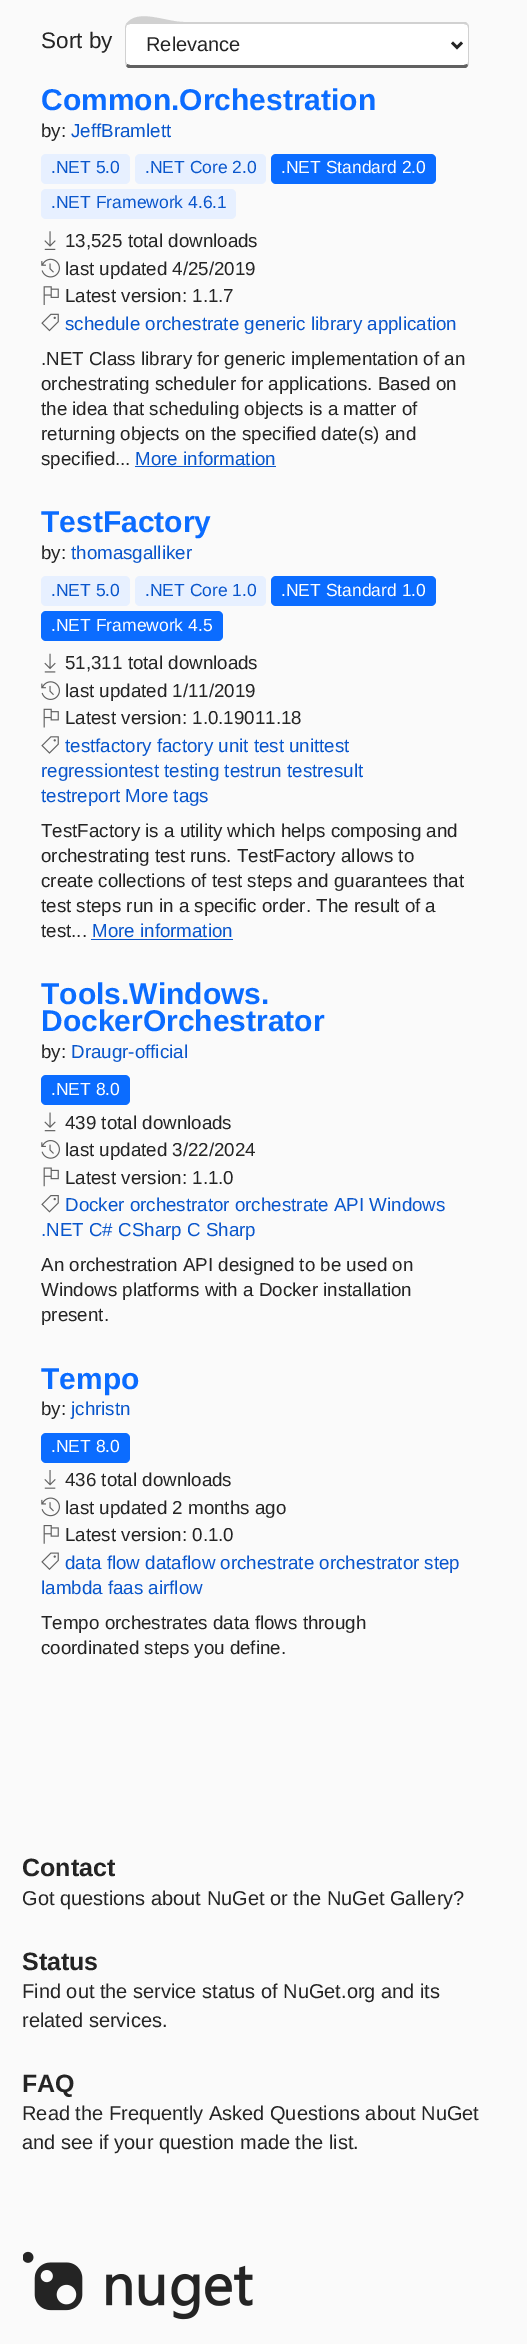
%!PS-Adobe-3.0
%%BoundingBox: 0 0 527 2344
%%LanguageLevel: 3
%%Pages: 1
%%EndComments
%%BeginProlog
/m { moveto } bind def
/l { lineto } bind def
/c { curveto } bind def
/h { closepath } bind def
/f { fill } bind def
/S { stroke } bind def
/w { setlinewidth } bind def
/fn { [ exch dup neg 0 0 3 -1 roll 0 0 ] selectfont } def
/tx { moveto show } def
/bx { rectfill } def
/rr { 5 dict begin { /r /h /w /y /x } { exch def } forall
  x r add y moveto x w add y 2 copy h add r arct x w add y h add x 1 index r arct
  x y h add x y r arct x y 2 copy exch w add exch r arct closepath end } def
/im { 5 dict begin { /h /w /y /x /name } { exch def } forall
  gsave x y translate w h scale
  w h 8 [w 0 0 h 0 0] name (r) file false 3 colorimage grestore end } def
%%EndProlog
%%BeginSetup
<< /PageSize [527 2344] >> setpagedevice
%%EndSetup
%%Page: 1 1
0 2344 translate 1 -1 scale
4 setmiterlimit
0.98 setgray
0 0 527 2344 bx
/LiberationSans-Regular 22.5 fn
0.141 setgray
(Sort by) 41 48 tx
1 setgray
130 24 m 464 24 l 466 24 468 25 468 28 c 468 62 l 468 64 466 65 464 65 c 130 65 l 128 65 126 64 126 62 c 126 28 l 126 25 128 24 130 24 c h f
0.82 setgray
130 24 m 127 25 l 126 24 l 138 8 165 22 184 22 c 466 22 l 468 24 l 467 25 l 464 24 l h f
469 64 m 468 66 l 467 64 l 468 64 468 63 468 62 c 468 28 l 468 26 467 25 467 25 c 468 24 l 469 26 l h f
0.38 setgray
128 68 m 126 66 l 127 64 l 130 65 l 464 65 l 467 64 l 468 66 l 466 68 l h f
0.82 setgray
125 28 m 125 62 l 126 66 l 127 64 l 126 62 l 126 28 l 126 26 127 25 127 25 c 126 24 l 126 25 125 26 125 28 c h f
0.141 setgray
2.5 w
452 42.5 m 457 47.5 l 462 42.5 l S
/LiberationSans-Regular 20 fn
(Relevance) 146 51 tx
/LiberationSans-Bold 30 fn
0.043 0.424 1 setrgbcolor
(Common.Orchestration) 41 110 tx
/LiberationSans-Regular 18.75 fn
0.141 setgray
(by:) 41 137 tx
0.035 0.337 0.8 setrgbcolor
(JeffBramlett) 71 137 tx
0.906 0.941 1 setrgbcolor
41 154 89 30 5 rr f
/LiberationSans-Regular 17.5 fn
0.035 0.337 0.8 setrgbcolor
(.NET 5.0) 51 173 tx
0.906 0.941 1 setrgbcolor
135 154 131 30 5 rr f
0.035 0.337 0.8 setrgbcolor
(.NET Core 2.0) 145 173 tx
0.043 0.424 1 setrgbcolor
271 154 165 30 5 rr f
1 setgray
(.NET Standard 2.0) 281 173 tx
0.906 0.941 1 setrgbcolor
41 189 195 30 5 rr f
0.035 0.337 0.8 setrgbcolor
(.NET Framework 4.6.1) 51 208 tx
(image0.raw) 44 231 12 19 im
/LiberationSans-Regular 18.75 fn
0.141 setgray
(13,525 total downloads) 65 247 tx
(image1.raw) 41 258 19 20 im
(last updated 4/25/2019) 65 275 tx
(image2.raw) 43 286 16 19 im
(Latest version: 1.1.7) 65 302 tx
(image3.raw) 41 313 18 19 im
0.035 0.337 0.8 setrgbcolor
(schedule orchestrate generic library application) 65 330 tx
0.141 setgray
(.NET Class library for generic implementation of an) 41 365 tx
(orchestrating scheduler for applications. Based on) 41 390 tx
(the idea that scheduling objects is a matter of) 41 415 tx
(returning objects on the specified date\(s\) and) 41 440 tx
(specified...) 41 465 tx
0.035 0.337 0.8 setrgbcolor
(More information) 135 465 tx
135 466 141 1 bx
/LiberationSans-Bold 30 fn
0.043 0.424 1 setrgbcolor
(TestFactory) 41 532 tx
/LiberationSans-Regular 18.75 fn
0.141 setgray
(by:) 41 559 tx
0.035 0.337 0.8 setrgbcolor
(thomasgalliker) 71 559 tx
0.906 0.941 1 setrgbcolor
41 576 89 30 5 rr f
/LiberationSans-Regular 17.5 fn
0.035 0.337 0.8 setrgbcolor
(.NET 5.0) 51 596 tx
0.906 0.941 1 setrgbcolor
135 576 131 30 5 rr f
0.035 0.337 0.8 setrgbcolor
(.NET Core 1.0) 145 596 tx
0.043 0.424 1 setrgbcolor
271 576 165 30 5 rr f
1 setgray
(.NET Standard 1.0) 281 596 tx
0.043 0.424 1 setrgbcolor
41 611 182 30 5 rr f
1 setgray
(.NET Framework 4.5) 51 631 tx
(image4.raw) 44 653 12 20 im
/LiberationSans-Regular 18.75 fn
0.141 setgray
(51,311 total downloads) 65 669 tx
(image5.raw) 41 681 19 19 im
(last updated 1/11/2019) 65 697 tx
(image6.raw) 43 708 16 20 im
(Latest version: 1.0.19011.18) 65 724 tx
(image7.raw) 41 736 18 18 im
0.035 0.337 0.8 setrgbcolor
(testfactory factory unit test unittest) 65 752 tx
(regressiontest testing testrun testresult) 41 777 tx
(testreport More tags) 41 802 tx
0.141 setgray
(TestFactory is a utility which helps composing and) 41 837 tx
(orchestrating test runs. TestFactory allows to) 41 862 tx
(create collections of test steps and guarantees that) 41 887 tx
(test steps run in a specific order. The result of a) 41 912 tx
(test...) 41 937 tx
0.035 0.337 0.8 setrgbcolor
(More information) 92 937 tx
91 939 142 1 bx
/LiberationSans-Bold 30 fn
0.043 0.424 1 setrgbcolor
(Tools.Windows.) 41 1004 tx
(DockerOrchestrator) 41 1031 tx
/LiberationSans-Regular 18.75 fn
0.141 setgray
(by:) 41 1058 tx
0.035 0.337 0.8 setrgbcolor
(Draugr-official) 71 1058 tx
0.043 0.424 1 setrgbcolor
41 1075 89 30 5 rr f
/LiberationSans-Regular 17.5 fn
1 setgray
(.NET 8.0) 51 1095 tx
(image8.raw) 44 1112 12 20 im
/LiberationSans-Regular 18.75 fn
0.141 setgray
(439 total downloads) 65 1129 tx
(image9.raw) 41 1140 19 19 im
(last updated 3/22/2024) 65 1156 tx
(image10.raw) 43 1167 16 20 im
(Latest version: 1.1.0) 65 1184 tx
(image11.raw) 41 1195 18 18 im
0.035 0.337 0.8 setrgbcolor
(Docker orchestrator orchestrate API Windows) 65 1211 tx
(.NET C# CSharp C Sharp) 41 1236 tx
0.141 setgray
(An orchestration API designed to be used on) 41 1271 tx
(Windows platforms with a Docker installation) 41 1296 tx
(present.) 41 1321 tx
/LiberationSans-Bold 30 fn
0.043 0.424 1 setrgbcolor
(Tempo) 41 1389 tx
/LiberationSans-Regular 18.75 fn
0.141 setgray
(by:) 41 1415 tx
0.035 0.337 0.8 setrgbcolor
(jchristn) 71 1415 tx
0.043 0.424 1 setrgbcolor
41 1433 89 30 5 rr f
/LiberationSans-Regular 17.5 fn
1 setgray
(.NET 8.0) 51 1452 tx
(image12.raw) 44 1470 12 19 im
/LiberationSans-Regular 18.75 fn
0.141 setgray
(436 total downloads) 65 1486 tx
(image13.raw) 41 1497 19 20 im
(last updated 2 months ago) 65 1514 tx
(image14.raw) 43 1525 16 19 im
(Latest version: 0.1.0) 65 1541 tx
(image15.raw) 41 1552 18 18 im
0.035 0.337 0.8 setrgbcolor
(data flow dataflow orchestrate orchestrator step) 65 1569 tx
(lambda faas airflow) 41 1594 tx
0.141 setgray
(Tempo orchestrates data flows through) 41 1629 tx
(coordinated steps you define.) 41 1654 tx
/LiberationSans-Bold 25 fn
(Contact) 22 1876 tx
/LiberationSans-Regular 20 fn
(Got questions about NuGet or the NuGet Gallery?) 22 1905 tx
/LiberationSans-Bold 25 fn
(Status) 22 1970 tx
/LiberationSans-Regular 20 fn
(Find out the service status of NuGet.org and its) 22 1998 tx
(related services.) 22 2027 tx
/LiberationSans-Bold 25 fn
(FAQ) 22 2092 tx
/LiberationSans-Regular 20 fn
(Read the Frequently Asked Questions about NuGet) 22 2120 tx
(and see if your question made the list.) 22 2149 tx
(image16.raw) 23 2251 230 69 im
showpage
%%EOF
